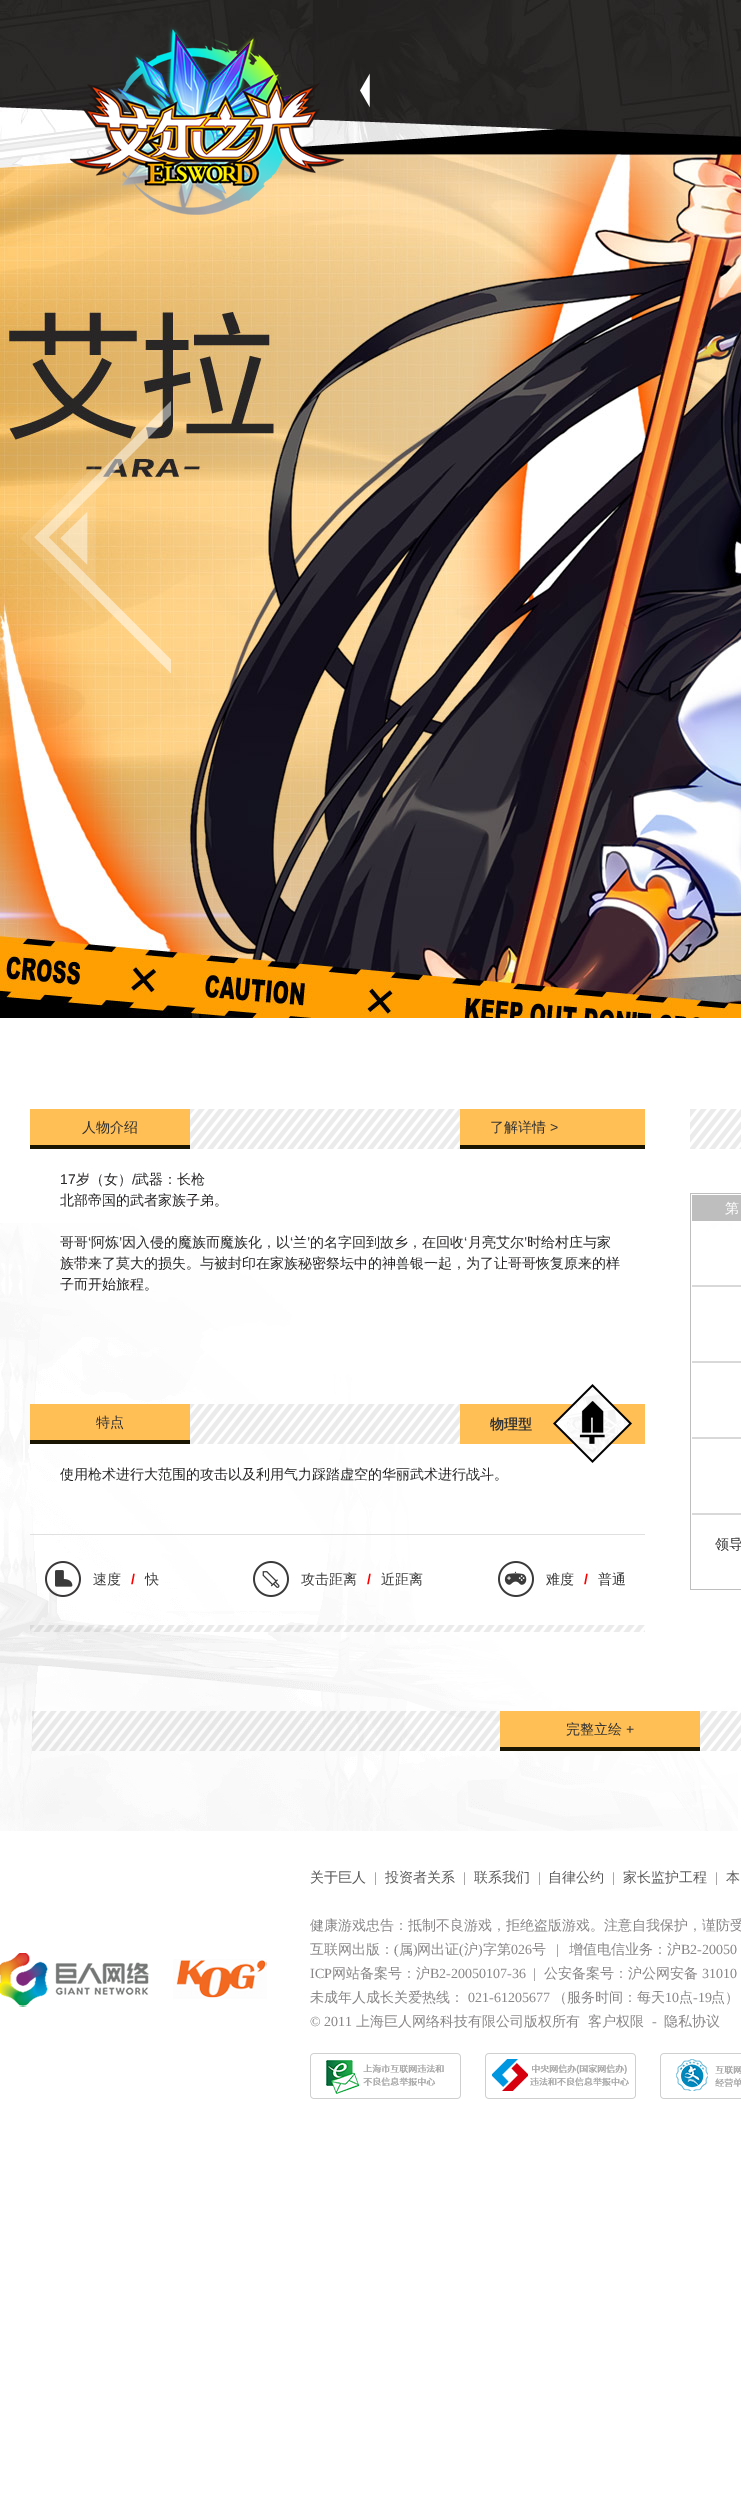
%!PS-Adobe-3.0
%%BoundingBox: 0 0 741 2506
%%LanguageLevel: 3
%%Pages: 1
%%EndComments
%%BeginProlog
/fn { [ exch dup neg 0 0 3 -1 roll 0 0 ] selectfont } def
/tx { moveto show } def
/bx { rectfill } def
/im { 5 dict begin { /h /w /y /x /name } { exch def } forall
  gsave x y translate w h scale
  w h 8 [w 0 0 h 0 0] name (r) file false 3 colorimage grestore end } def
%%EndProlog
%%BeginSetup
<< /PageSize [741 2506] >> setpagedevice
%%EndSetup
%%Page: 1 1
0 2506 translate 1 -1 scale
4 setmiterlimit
1 setgray
0 0 741 2506 bx
(image0.raw) 0 0 741 1018 im
(image1.raw) 70 27 274 188 im
(image2.raw) 360 73 10 35 im
(image3.raw) 20 401 151 272 im
(image4.raw) 0 1223 738 608 im
(image5.raw) 190 1109 270 40 im
1 0.749 0.333 setrgbcolor
30 1109 160 36 bx
0.098 0.082 0.008 setrgbcolor
30 1145 160 4 bx
/WenQuanYiZenHei-Medium 14 fn
0.2 setgray
(人物介绍) 82 1132 tx
1 0.749 0.333 setrgbcolor
460 1109 185 36 bx
0.098 0.082 0.008 setrgbcolor
460 1145 185 4 bx
0.2 setgray
(了解详情) 490 1132 tx
/LiberationSans-Regular 14 fn
(>) 550 1132 tx
0.157 0.149 0.149 setrgbcolor
(17) 60 1184 tx
/WenQuanYiZenHei-Medium 14 fn
(岁（女）) 76 1184 tx
/LiberationSans-Regular 14 fn
(/) 132 1184 tx
/WenQuanYiZenHei-Medium 14 fn
(武器：长枪) 135 1184 tx
(北部帝国的武者家族子弟。) 60 1205 tx
(哥哥) 60 1247 tx
/LiberationSans-Regular 14 fn
(‘) 88 1247 tx
/WenQuanYiZenHei-Medium 14 fn
(阿炼) 91 1247 tx
/LiberationSans-Regular 14 fn
(’) 119 1247 tx
/WenQuanYiZenHei-Medium 14 fn
(因入侵的魔族而魔族化，以) 122 1247 tx
/LiberationSans-Regular 14 fn
(‘) 290 1247 tx
/WenQuanYiZenHei-Medium 14 fn
(兰) 293 1247 tx
/LiberationSans-Regular 14 fn
(’) 307 1247 tx
/WenQuanYiZenHei-Medium 14 fn
(的名字回到故乡，在回收) 310 1247 tx
/LiberationSans-Regular 14 fn
(‘) 464 1247 tx
/WenQuanYiZenHei-Medium 14 fn
(月亮艾尔) 468 1247 tx
/LiberationSans-Regular 14 fn
(’) 524 1247 tx
/WenQuanYiZenHei-Medium 14 fn
(时给村庄与家) 527 1247 tx
(族带来了莫大的损失。与被封印在家族秘密祭坛中的神兽银一起，为了让哥哥恢复原来的样) 60 1268 tx
(子而开始旅程。) 60 1289 tx
(image6.raw) 690 1109 51 40 im
0.745 setgray
690 1193 51 1 bx
690 1193 1 397 bx
(image7.raw) 692 1285 49 2 im
692 1195 49 26 bx
1 setgray
(第) 725 1213 tx
(image7.raw) 692 1361 49 2 im
(image7.raw) 692 1437 49 2 im
(image7.raw) 692 1513 49 2 im
0.745 setgray
691 1589 50 1 bx
0.2 setgray
(领导) 715 1549 tx
(image8.raw) 190 1404 270 40 im
1 0.749 0.333 setrgbcolor
30 1404 160 36 bx
0.098 0.082 0.008 setrgbcolor
30 1440 160 4 bx
0.2 setgray
(特点) 96 1427 tx
1 0.749 0.333 setrgbcolor
460 1404 185 40 bx
/WenQuanYiZenHei-Bold 14 fn
0.2 setgray
(物理型) 490 1429 tx
(image9.raw) 553 1384 79 79 im
/WenQuanYiZenHei-Medium 14 fn
0.157 0.149 0.149 setrgbcolor
(使用枪术进行大范围的攻击以及利用气力踩踏虚空的华丽武术进行战斗。) 60 1479 tx
0.878 setgray
30 1534 615 1 bx
(image10.raw) 45 1561 36 36 im
0.231 0.227 0.227 setrgbcolor
(速度) 93 1584 tx
/LiberationSans-Bold 14 fn
1 0 0 setrgbcolor
(/) 131 1584 tx
/WenQuanYiZenHei-Medium 14 fn
0.231 0.227 0.227 setrgbcolor
(快) 145 1584 tx
(image11.raw) 253 1561 36 36 im
(攻击距离) 301 1584 tx
/LiberationSans-Bold 14 fn
1 0 0 setrgbcolor
(/) 367 1584 tx
/WenQuanYiZenHei-Medium 14 fn
0.231 0.227 0.227 setrgbcolor
(近距离) 381 1584 tx
(image12.raw) 498 1561 36 36 im
(难度) 546 1584 tx
/LiberationSans-Bold 14 fn
1 0 0 setrgbcolor
(/) 584 1584 tx
/WenQuanYiZenHei-Medium 14 fn
0.231 0.227 0.227 setrgbcolor
(普通) 598 1584 tx
(image13.raw) 30 1625 615 7 im
(image14.raw) 32 1711 709 40 im
1 0.749 0.333 setrgbcolor
500 1711 200 36 bx
0.098 0.082 0.008 setrgbcolor
500 1747 200 4 bx
0.2 setgray
(完整立绘) 566 1734 tx
/LiberationSans-Regular 14 fn
(+) 626 1734 tx
(image15.raw) 0 1953 267 54 im
/WenQuanYiZenHei-Medium 14 fn
0.353 0.357 0.353 setrgbcolor
(关于巨人) 310 1882 tx
/LiberationSerif-Regular 14 fn
0.537 0.529 0.529 setrgbcolor
(|) 374 1882 tx
/WenQuanYiZenHei-Medium 14 fn
0.353 0.357 0.353 setrgbcolor
(投资者关系) 385 1882 tx
/LiberationSerif-Regular 14 fn
0.537 0.529 0.529 setrgbcolor
(|) 463 1882 tx
/WenQuanYiZenHei-Medium 14 fn
0.353 0.357 0.353 setrgbcolor
(联系我们) 474 1882 tx
/LiberationSerif-Regular 14 fn
0.537 0.529 0.529 setrgbcolor
(|) 538 1882 tx
/WenQuanYiZenHei-Medium 14 fn
0.353 0.357 0.353 setrgbcolor
(自律公约) 548 1882 tx
/LiberationSerif-Regular 14 fn
0.537 0.529 0.529 setrgbcolor
(|) 612 1882 tx
/WenQuanYiZenHei-Medium 14 fn
0.353 0.357 0.353 setrgbcolor
(家长监护工程) 623 1882 tx
/LiberationSerif-Regular 14 fn
0.537 0.529 0.529 setrgbcolor
(|) 715 1882 tx
/WenQuanYiZenHei-Medium 14 fn
0.353 0.357 0.353 setrgbcolor
(本) 726 1882 tx
0.537 0.529 0.529 setrgbcolor
(健康游戏忠告：抵制不良游戏，拒绝盗版游戏。注意自我保护，谨防受) 310 1930 tx
(互联网出版：) 310 1954 tx
/LiberationSerif-Regular 14 fn
(\() 394 1954 tx
/WenQuanYiZenHei-Medium 14 fn
(属) 399 1954 tx
/LiberationSerif-Regular 14 fn
(\)) 413 1954 tx
/WenQuanYiZenHei-Medium 14 fn
(网出证) 417 1954 tx
/LiberationSerif-Regular 14 fn
(\() 459 1954 tx
/WenQuanYiZenHei-Medium 14 fn
(沪) 464 1954 tx
/LiberationSerif-Regular 14 fn
(\)) 478 1954 tx
/WenQuanYiZenHei-Medium 14 fn
(字第) 483 1954 tx
/LiberationSerif-Regular 14 fn
(026) 511 1954 tx
/WenQuanYiZenHei-Medium 14 fn
(号) 532 1954 tx
/LiberationSerif-Regular 14 fn
(|) 556 1954 tx
/WenQuanYiZenHei-Medium 14 fn
(增值电信业务：沪) 569 1954 tx
/LiberationSerif-Regular 14 fn
(B2-20050) 681 1954 tx
(ICP) 310 1978 tx
/WenQuanYiZenHei-Medium 14 fn
(网站备案号：沪) 332 1978 tx
/LiberationSerif-Regular 14 fn
(B2-20050107-36) 430 1978 tx
(|) 533 1978 tx
/WenQuanYiZenHei-Medium 14 fn
(公安备案号：沪公网安备) 544 1978 tx
/LiberationSerif-Regular 14 fn
(31010) 702 1978 tx
/WenQuanYiZenHei-Medium 14 fn
(未成年人成长关爱热线：) 310 2002 tx
/LiberationSerif-Regular 14 fn
(021-61205677) 468 2002 tx
/WenQuanYiZenHei-Medium 14 fn
(（服务时间：每天) 553 2002 tx
/LiberationSerif-Regular 14 fn
(10) 665 2002 tx
/WenQuanYiZenHei-Medium 14 fn
(点) 679 2002 tx
/LiberationSerif-Regular 14 fn
(-19) 693 2002 tx
/WenQuanYiZenHei-Medium 14 fn
(点）) 711 2002 tx
/LiberationSerif-Regular 14 fn
(© 2011) 310 2026 tx
/WenQuanYiZenHei-Medium 14 fn
(上海巨人网络科技有限公司版权所有) 356 2026 tx
(客户权限) 588 2026 tx
/LiberationSerif-Regular 14 fn
(-) 652 2026 tx
/WenQuanYiZenHei-Medium 14 fn
(隐私协议) 664 2026 tx
(image16.raw) 310 2053 151 46 im
(image17.raw) 485 2053 151 46 im
(image18.raw) 660 2053 81 46 im
showpage
%%EOF
